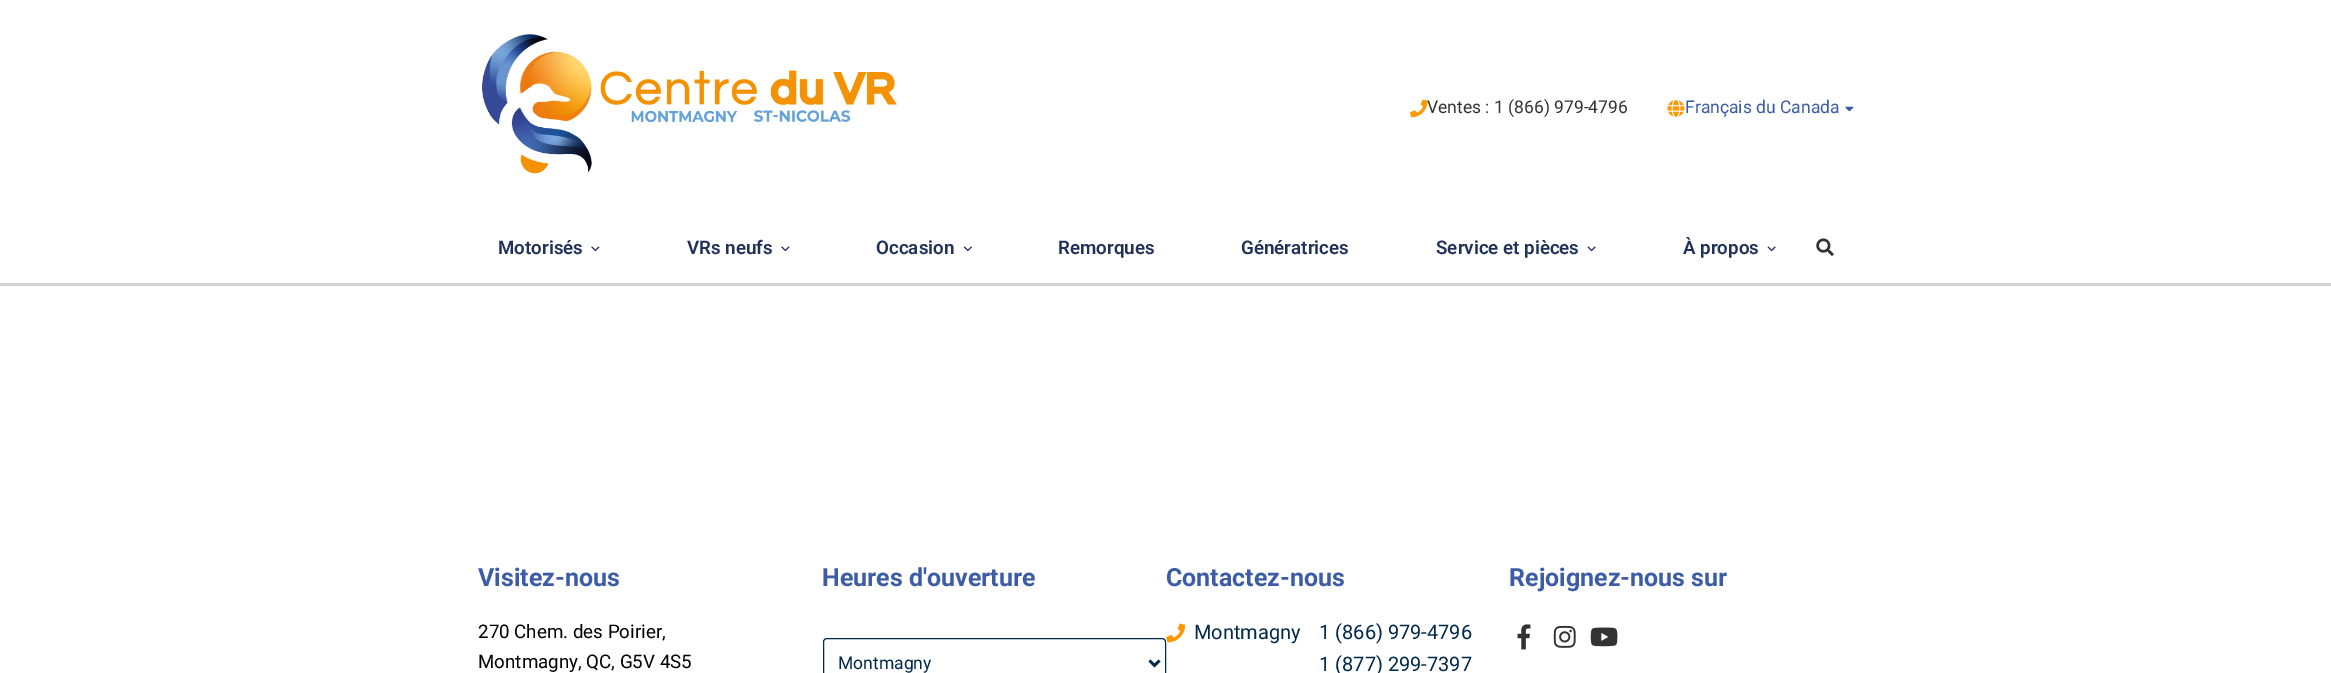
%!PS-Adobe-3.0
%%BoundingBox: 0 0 2331 673
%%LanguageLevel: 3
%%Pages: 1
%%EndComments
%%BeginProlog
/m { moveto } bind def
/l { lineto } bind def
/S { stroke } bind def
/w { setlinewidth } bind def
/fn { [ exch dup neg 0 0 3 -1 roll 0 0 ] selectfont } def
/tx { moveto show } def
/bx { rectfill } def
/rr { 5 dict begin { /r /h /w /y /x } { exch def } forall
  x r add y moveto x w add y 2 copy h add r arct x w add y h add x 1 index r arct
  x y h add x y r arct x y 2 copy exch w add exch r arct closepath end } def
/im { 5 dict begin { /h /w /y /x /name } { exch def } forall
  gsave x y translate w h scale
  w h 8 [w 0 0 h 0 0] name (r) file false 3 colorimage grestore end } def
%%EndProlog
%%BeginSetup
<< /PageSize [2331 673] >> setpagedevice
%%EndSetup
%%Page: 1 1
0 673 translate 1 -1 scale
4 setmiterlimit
1 setgray
0 0 2331 673 bx
(image0.raw) 482 34 415 140 im
(image1.raw) 1410 99 18 19 im
/Roboto-Regular 17.5 fn
0.2 setgray
(Ventes : 1 \(866\) 979-4796) 1427 113 tx
(image2.raw) 1667 100 18 17 im
0.235 0.361 0.651 setrgbcolor
(Français du Canada) 1685 113 tx
(image3.raw) 1845 106 9 6 im
0.827 setgray
0 283 2331 3 bx
/Roboto-SemiBold 18.75 fn
0.125 0.192 0.353 setrgbcolor
(Motorisés) 498 254 tx
(image4.raw) 591 246 9 6 im
(VRs neufs) 687 254 tx
(image4.raw) 781 246 9 6 im
(Occasion) 876 254 tx
(image5.raw) 963 246 9 6 im
(Remorques) 1058 254 tx
(Génératrices) 1241 254 tx
(Service et pièces) 1436 254 tx
(image6.raw) 1587 246 9 6 im
(À propos) 1683 254 tx
(image6.raw) 1767 246 9 6 im
(image7.raw) 1816 238 18 18 im
/Roboto-Bold 25 fn
0.235 0.361 0.651 setrgbcolor
(Visitez-nous) 478 586 tx
/Roboto-Regular 18.75 fn
0 setgray
(270 Chem. des Poirier,) 478 638 tx
(Montmagny, QC, G5V 4S5) 478 668 tx
/Roboto-Bold 25 fn
0.235 0.361 0.651 setrgbcolor
(Heures d'ouverture) 822 586 tx
0 0.161 0.29 setrgbcolor
823.5 638.5 342 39 3.5 rr S
2.5 w
1149.5 660.5 m 1154.5 665.5 l 1159.5 660.5 l S
/Roboto-Regular 17.5 fn
(Montmagny) 838 669 tx
/Roboto-Bold 25 fn
0.235 0.361 0.651 setrgbcolor
(Contactez-nous) 1166 586 tx
(image8.raw) 1166 623 19 20 im
/Roboto-Regular 20 fn
0 0.161 0.29 setrgbcolor
(Montmagny) 1194 639 tx
(1 \(866\) 979-4796) 1319 639 tx
(1 \(877\) 299-7397) 1319 671 tx
/Roboto-Bold 25 fn
0.235 0.361 0.651 setrgbcolor
(Rejoignez-nous sur) 1509 586 tx
(image9.raw) 1517 624 14 26 im
(image10.raw) 1553 625 23 23 im
(image11.raw) 1590 627 28 20 im
showpage
%%EOF
